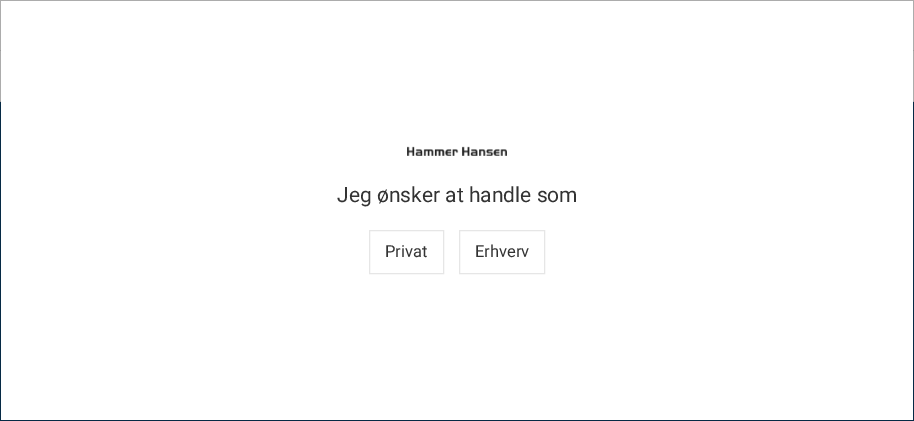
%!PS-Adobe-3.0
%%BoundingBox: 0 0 914 421
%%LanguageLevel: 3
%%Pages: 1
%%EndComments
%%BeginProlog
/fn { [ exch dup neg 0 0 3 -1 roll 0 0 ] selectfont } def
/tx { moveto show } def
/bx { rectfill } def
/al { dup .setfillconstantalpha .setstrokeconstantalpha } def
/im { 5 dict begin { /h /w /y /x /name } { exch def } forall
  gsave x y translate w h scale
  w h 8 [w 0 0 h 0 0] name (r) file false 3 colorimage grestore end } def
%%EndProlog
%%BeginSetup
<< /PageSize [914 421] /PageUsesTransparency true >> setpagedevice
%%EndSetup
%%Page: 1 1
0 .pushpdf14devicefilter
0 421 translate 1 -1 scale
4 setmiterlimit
0.027 0.184 0.302 setrgbcolor
0 0 914 421 bx
0.749 setgray
0 0 914 50 bx
0.678 setgray
0 50 914 1 bx
0.749 setgray
0 51 914 50 bx
0.678 setgray
0 101 914 1 bx
0.1 al
0 setgray
0.5 0.5 913 420 rectstroke
1 al
1 setgray
1 1 912 419 bx
(image0.raw) 407 146 100 10 im
/Roboto-Regular 21 fn
0.2 setgray
(Jeg ønsker at handle som) 337 202 tx
0.902 setgray
369.5 230.5 74 43 rectstroke
/Roboto-Regular 16.5 fn
0.2 setgray
(Privat) 385 257 tx
0.902 setgray
459.5 230.5 85 43 rectstroke
0.2 setgray
(Erhverv) 475 257 tx
.poppdf14devicefilter showpage
%%EOF
